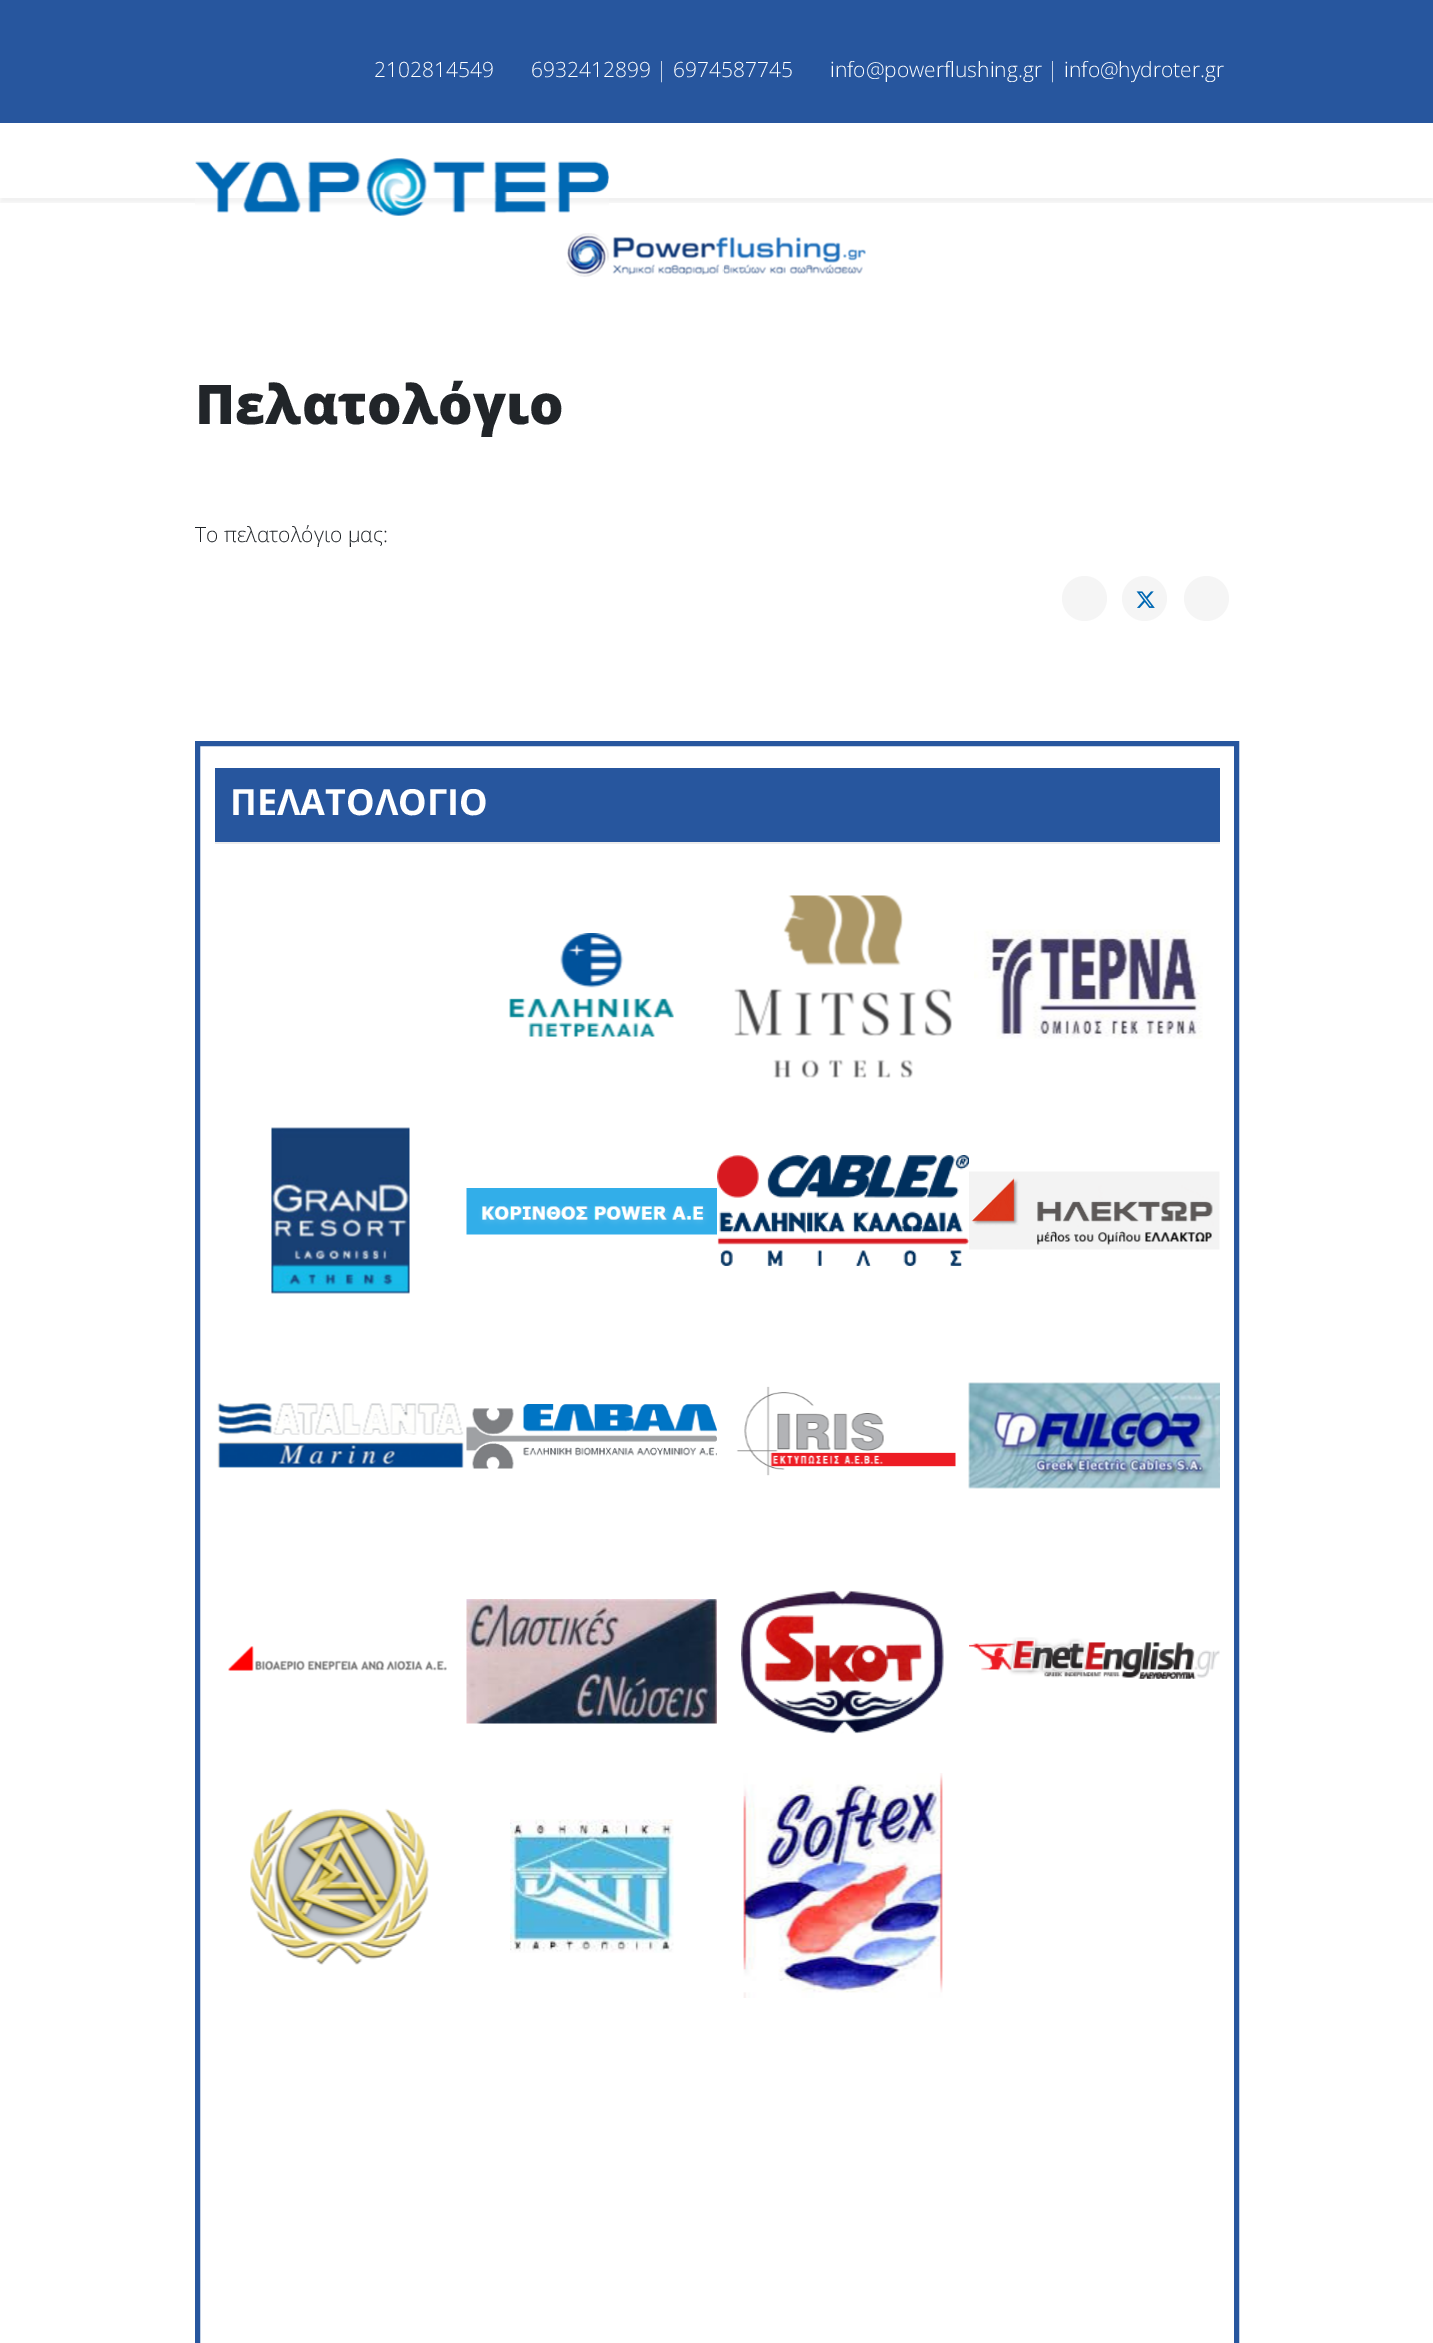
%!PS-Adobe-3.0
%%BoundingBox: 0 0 1433 2343
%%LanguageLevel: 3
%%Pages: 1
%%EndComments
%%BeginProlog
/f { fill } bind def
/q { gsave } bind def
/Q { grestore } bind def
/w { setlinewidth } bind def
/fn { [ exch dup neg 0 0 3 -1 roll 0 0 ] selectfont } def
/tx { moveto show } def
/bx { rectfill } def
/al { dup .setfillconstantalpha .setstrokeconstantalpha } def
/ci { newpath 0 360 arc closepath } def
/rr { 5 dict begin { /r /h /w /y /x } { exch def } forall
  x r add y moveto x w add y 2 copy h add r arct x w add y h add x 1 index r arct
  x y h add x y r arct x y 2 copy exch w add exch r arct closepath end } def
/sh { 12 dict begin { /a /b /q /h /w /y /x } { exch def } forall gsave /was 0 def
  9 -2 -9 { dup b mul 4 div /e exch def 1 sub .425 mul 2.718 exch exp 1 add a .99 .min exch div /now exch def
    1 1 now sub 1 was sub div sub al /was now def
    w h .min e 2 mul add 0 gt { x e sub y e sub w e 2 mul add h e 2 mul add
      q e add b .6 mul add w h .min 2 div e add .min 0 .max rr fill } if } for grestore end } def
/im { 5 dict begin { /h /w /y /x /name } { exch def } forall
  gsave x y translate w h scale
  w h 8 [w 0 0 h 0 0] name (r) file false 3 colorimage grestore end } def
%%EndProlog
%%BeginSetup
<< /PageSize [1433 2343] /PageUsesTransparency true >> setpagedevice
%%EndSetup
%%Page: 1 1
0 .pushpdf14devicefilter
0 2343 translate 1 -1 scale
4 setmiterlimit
1 setgray
0 0 1433 2343 bx
0.153 0.337 0.62 setrgbcolor
0 0 1433 123 bx
/OpenSans-Light 21 fn
1 setgray
(2102814549) 374 77 tx
(6932412899 | 6974587745) 531 77 tx
(info@powerflushing.gr | info@hydroter.gr) 830 77 tx
q
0 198 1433 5 rectclip
0 setgray
0 128 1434 75 0 2 0.05 sh
Q
(image0.raw) 195 158 414 58 im
(image1.raw) 566 233 300 44 im
/OpenSans-ExtraBold 54.5 fn
0.129 0.145 0.161 setrgbcolor
(Πελατολόγιο) 195 424 tx
/OpenSans-Light 21 fn
(Το πελατολόγιο μας:) 195 542 tx
0.961 setgray
1084.5 598.5 22.5 ci f
1144.5 598.5 22.5 ci f
(image2.raw) 1136 591 19 17 im
1206.5 598.5 22.5 ci f
0.153 0.337 0.62 setrgbcolor
5 w
197.5 743.5 1039 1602 rectstroke
215 768 1005 74 bx
0.925 setgray
215 842 1005 2 bx
/OpenSans-Bold 36 fn
1 setgray
(ΠΕΛΑΤΟΛΟΓΙΟ) 230 815 tx
(image3.raw) 509 933 165 104 im
(image4.raw) 734 895 218 183 im
(image5.raw) 974 929 229 110 im
(image6.raw) 271 1127 139 167 im
(image7.raw) 466 1188 251 47 im
(image8.raw) 717 1155 252 111 im
(image9.raw) 969 1171 251 79 im
(image10.raw) 217 1403 247 65 im
(image11.raw) 466 1404 251 65 im
(image12.raw) 736 1386 220 90 im
(image13.raw) 968 1382 252 107 im
(image14.raw) 228 1646 219 25 im
(image15.raw) 466 1599 251 125 im
(image16.raw) 741 1590 203 144 im
(image17.raw) 969 1637 251 42 im
(image18.raw) 250 1808 179 157 im
(image19.raw) 510 1819 164 134 im
(image20.raw) 743 1773 200 225 im
.poppdf14devicefilter showpage
%%EOF
